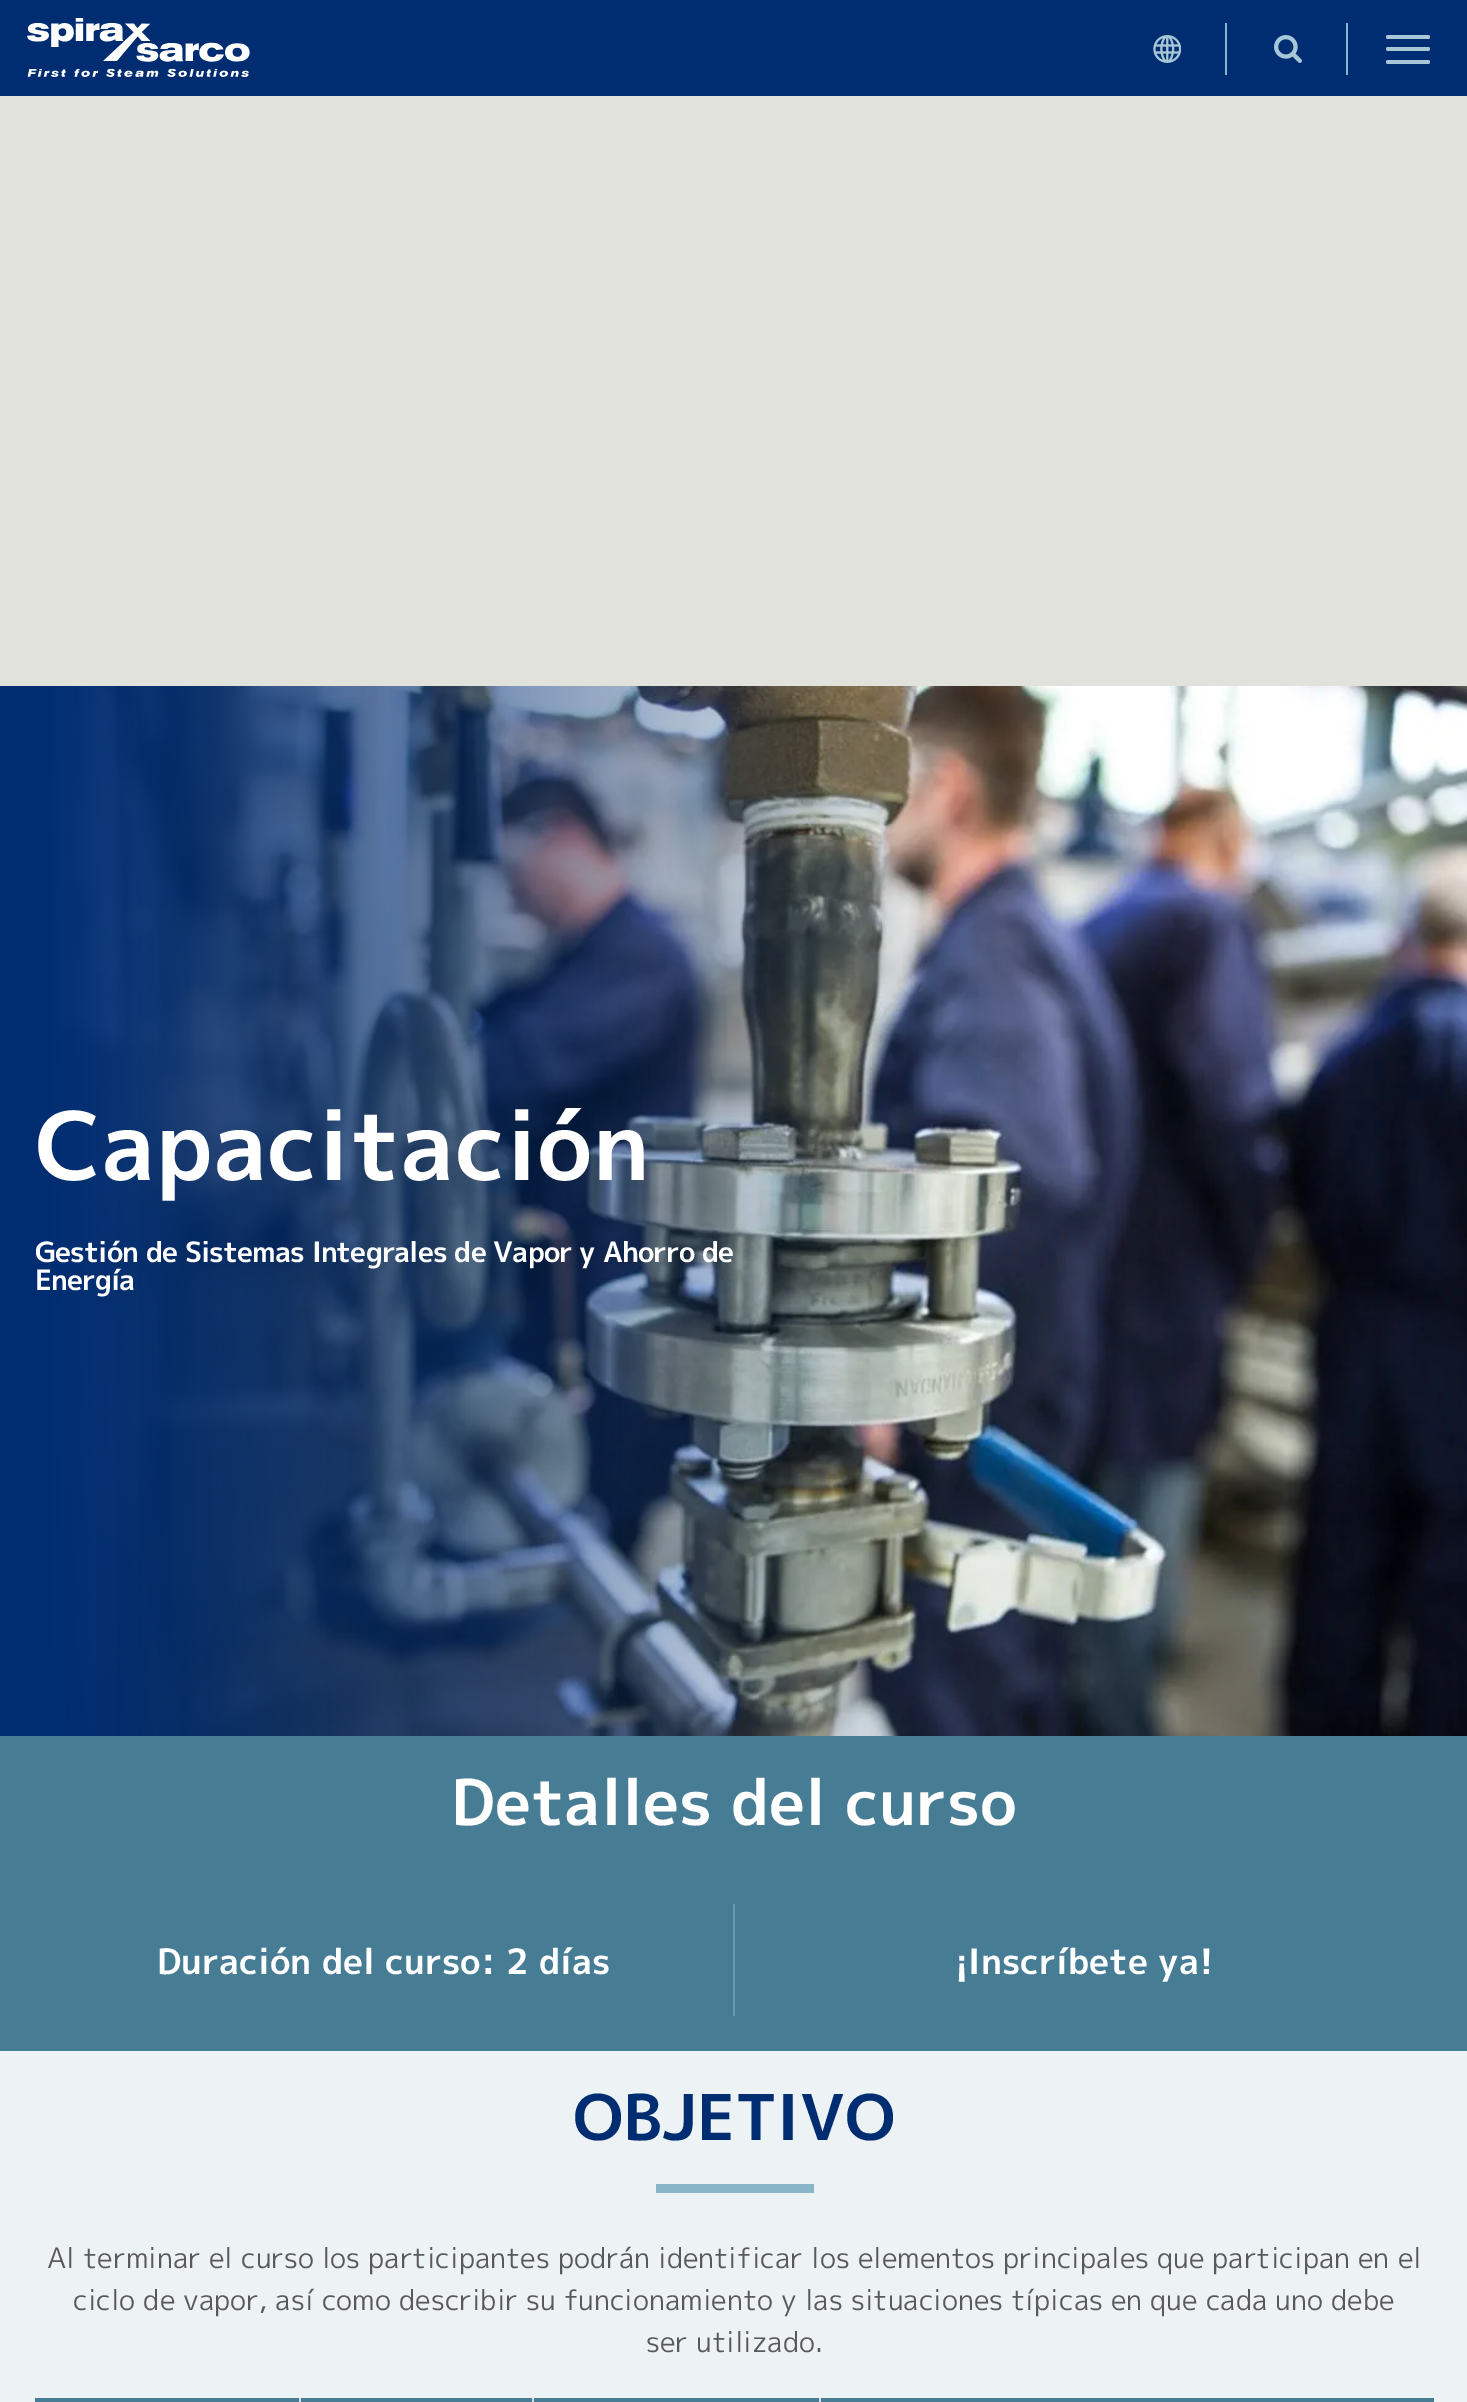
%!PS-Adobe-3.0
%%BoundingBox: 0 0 1467 2402
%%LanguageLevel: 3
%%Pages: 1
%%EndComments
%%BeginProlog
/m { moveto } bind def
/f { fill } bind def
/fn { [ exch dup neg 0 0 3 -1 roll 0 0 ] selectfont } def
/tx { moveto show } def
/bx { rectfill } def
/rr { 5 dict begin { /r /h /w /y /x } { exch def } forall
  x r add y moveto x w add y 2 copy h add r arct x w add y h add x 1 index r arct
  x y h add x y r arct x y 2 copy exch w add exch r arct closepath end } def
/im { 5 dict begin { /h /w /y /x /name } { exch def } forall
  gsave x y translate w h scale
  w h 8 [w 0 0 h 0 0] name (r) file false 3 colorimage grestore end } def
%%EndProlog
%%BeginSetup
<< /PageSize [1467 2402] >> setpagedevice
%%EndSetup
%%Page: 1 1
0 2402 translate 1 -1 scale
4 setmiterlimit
0.886 0.886 0.863 setrgbcolor
0 0 1467 2402 bx
0 0.176 0.447 setrgbcolor
0 0 1467 96 bx
(image0.raw) 27 18 223 59 im
(image1.raw) 1153 35 28 28 im
0.533 0.71 0.78 setrgbcolor
1225 23 2 52 bx
(image2.raw) 1274 35 28 28 im
1346 23 2 52 bx
0.651 0.78 0.835 setrgbcolor
1386 47 44 4 2 rr f
1386 35 44 4 2 rr f
1386 60 44 4 2 rr f
(image3.raw) 0 686 1467 1050 im
/MPLUS1p-Bold 94.5 fn
1 setgray
(Capacitación) 35 1180 tx
/MPLUS1p-Bold 28 fn
35 1262 m -0.88 0 (Gestión de Sistemas Integrales de Vapor y Ahorro de) ashow
35 1290 m -0.88 0 (Energía) ashow
0.278 0.49 0.58 setrgbcolor
0 1736 1467 315 bx
/MPLUS1p-Bold 63 fn
1 setgray
(Detalles del curso) 451 1825 tx
0.408 0.6 0.682 setrgbcolor
733 1904 2 112 bx
/MPLUS1p-Bold 35 fn
1 setgray
(Duración del curso: 2 días) 157 1974 tx
(¡Inscríbete ya!) 955 1974 tx
0.929 0.949 0.957 setrgbcolor
0 2051 1467 351 bx
/MPLUS1p-Bold 63 fn
0 0.176 0.447 setrgbcolor
(OBJETIVO) 573 2140 tx
0.533 0.71 0.78 setrgbcolor
656 2184 158 9 bx
/MPLUS1p-Regular 28 fn
0.345 0.349 0.357 setrgbcolor
(Al terminar el curso los participantes podrán identificar los elementos principales que participan en el) 47 2268 tx
(ciclo de vapor, así como describir su funcionamiento y las situaciones típicas en que cada uno debe) 73 2310 tx
(ser utilizado.) 646 2352 tx
0.278 0.49 0.58 setrgbcolor
35 2398 1398 2 bx
1433 2398 1 4 bx
35 2398 2 4 bx
37 2400 1396 2 bx
0.831 0.871 0.906 setrgbcolor
299 2398 2 4 bx
532 2398 2 4 bx
819 2398 2 4 bx
showpage
%%EOF
